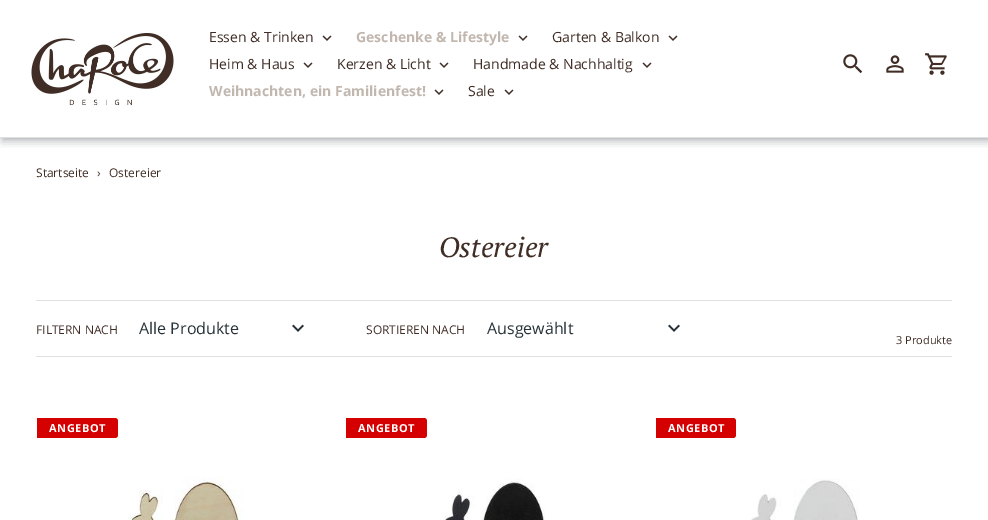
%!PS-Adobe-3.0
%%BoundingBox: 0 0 988 520
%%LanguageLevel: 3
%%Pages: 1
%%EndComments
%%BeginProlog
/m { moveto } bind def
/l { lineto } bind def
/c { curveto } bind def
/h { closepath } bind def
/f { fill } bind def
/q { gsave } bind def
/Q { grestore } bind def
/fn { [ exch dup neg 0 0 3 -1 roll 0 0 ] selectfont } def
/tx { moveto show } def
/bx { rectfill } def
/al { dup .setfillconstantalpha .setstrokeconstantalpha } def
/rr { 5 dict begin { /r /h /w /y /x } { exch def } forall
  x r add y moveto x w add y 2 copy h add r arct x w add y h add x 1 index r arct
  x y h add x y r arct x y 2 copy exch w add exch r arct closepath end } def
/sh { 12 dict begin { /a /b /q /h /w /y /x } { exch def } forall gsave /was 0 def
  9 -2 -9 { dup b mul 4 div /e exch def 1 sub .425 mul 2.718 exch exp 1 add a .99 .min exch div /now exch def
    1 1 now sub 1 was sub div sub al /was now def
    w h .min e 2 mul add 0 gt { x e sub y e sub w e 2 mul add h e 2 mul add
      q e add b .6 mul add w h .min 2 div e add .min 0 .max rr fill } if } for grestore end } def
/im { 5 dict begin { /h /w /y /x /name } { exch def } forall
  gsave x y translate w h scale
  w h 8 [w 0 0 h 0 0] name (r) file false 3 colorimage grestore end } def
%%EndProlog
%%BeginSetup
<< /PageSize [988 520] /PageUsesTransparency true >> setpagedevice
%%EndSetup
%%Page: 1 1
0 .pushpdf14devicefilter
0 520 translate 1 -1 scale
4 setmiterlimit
1 setgray
0 0 988 520 bx
q
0 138 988 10 rectclip
0.149 0.196 0.22 setrgbcolor
2 4 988 138 0 4 0.28 sh
Q
q
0 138 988 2 rectclip
0.149 0.196 0.22 setrgbcolor
0 0 988 138 0 2 0.14 sh
Q
0.878 setgray
0 137 988 1 bx
(image0.raw) 31 32 143 74 im
/OpenSans-Regular 14 fn
0.251 0.176 0.149 setrgbcolor
(Essen & Trinken) 209 42 tx
(image1.raw) 322 35 10 6 im
/OpenSans-Bold 14 fn
0.761 0.718 0.682 setrgbcolor
(Geschenke & Lifestyle) 356 42 tx
(image1.raw) 518 35 10 6 im
/OpenSans-Regular 14 fn
0.251 0.176 0.149 setrgbcolor
(Garten & Balkon) 552 42 tx
(image1.raw) 668 35 10 6 im
(Heim & Haus) 209 69 tx
(image1.raw) 303 62 10 6 im
(Kerzen & Licht) 337 69 tx
(image1.raw) 439 62 10 6 im
(Handmade & Nachhaltig) 473 69 tx
(image1.raw) 642 62 10 6 im
/OpenSans-Bold 14 fn
0.761 0.718 0.682 setrgbcolor
(Weihnachten, ein Familienfest!) 209 96 tx
(image1.raw) 434 89 10 6 im
/OpenSans-Regular 14 fn
0.251 0.176 0.149 setrgbcolor
(Sale) 468 96 tx
(image1.raw) 504 89 10 6 im
(image2.raw) 843 54 20 20 im
(image3.raw) 886 55 18 18 im
(image4.raw) 925 53 22 22 im
/OpenSans-Regular 12 fn
(Startseite) 36 177 tx
(›) 97 177 tx
(Ostereier) 109 177 tx
0.878 setgray
36 300 916 1 bx
/PTSerif-Italic 28 fn
0.251 0.176 0.149 setrgbcolor
(Ostereier) 439 257 tx
0.878 setgray
36 356 916 1 bx
/OpenSans-Regular 12 fn
0.251 0.176 0.149 setrgbcolor
(FILTERN NACH) 36 334 tx
/OpenSans-Regular 16 fn
0.149 0.196 0.22 setrgbcolor
(Alle Produkte) 139 334 tx
(image5.raw) 292 324 12 8 im
/OpenSans-Regular 12 fn
0.251 0.176 0.149 setrgbcolor
(SORTIEREN NACH) 366 334 tx
/OpenSans-Regular 16 fn
0.149 0.196 0.22 setrgbcolor
(Ausgewählt) 487 334 tx
(image5.raw) 668 324 12 8 im
/OpenSans-Regular 11 fn
0.251 0.176 0.149 setrgbcolor
(3 Produkte) 896 344 tx
0.835 0 0 setrgbcolor
37 418 m 115 418 l 116.5 418 118 419.5 118 421 c 118 435 l 118 436.5 116.5 438 115 438 c 37 438 l h f
/OpenSans-Bold 11 fn
1 setgray
49 432 m 0.5 0 (ANGEBOT) ashow
(image6.raw) 128 477 116 43 im
0.835 0 0 setrgbcolor
346 418 m 424 418 l 425.5 418 427 419.5 427 421 c 427 435 l 427 436.5 425.5 438 424 438 c 346 438 l h f
1 setgray
358 432 m 0.5 0 (ANGEBOT) ashow
(image7.raw) 439 478 106 42 im
0.835 0 0 setrgbcolor
656 418 m 733 418 l 734.5 418 736 419.5 736 421 c 736 435 l 736 436.5 734.5 438 733 438 c 656 438 l h f
1 setgray
668 432 m 0.5 0 (ANGEBOT) ashow
(image8.raw) 751 478 108 42 im
.poppdf14devicefilter showpage
%%EOF
